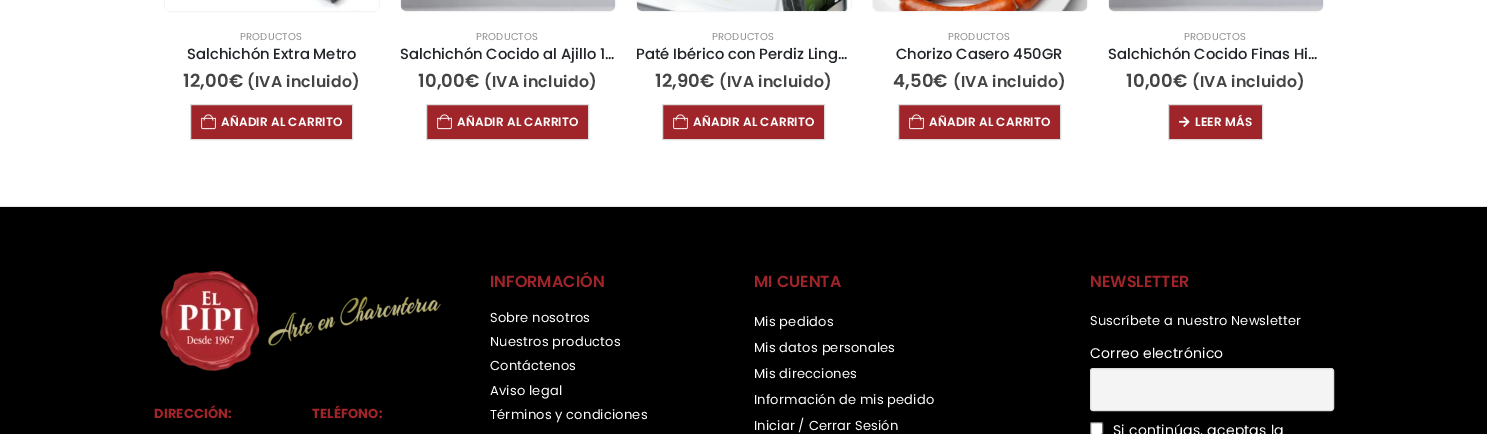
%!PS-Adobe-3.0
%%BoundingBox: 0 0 1487 434
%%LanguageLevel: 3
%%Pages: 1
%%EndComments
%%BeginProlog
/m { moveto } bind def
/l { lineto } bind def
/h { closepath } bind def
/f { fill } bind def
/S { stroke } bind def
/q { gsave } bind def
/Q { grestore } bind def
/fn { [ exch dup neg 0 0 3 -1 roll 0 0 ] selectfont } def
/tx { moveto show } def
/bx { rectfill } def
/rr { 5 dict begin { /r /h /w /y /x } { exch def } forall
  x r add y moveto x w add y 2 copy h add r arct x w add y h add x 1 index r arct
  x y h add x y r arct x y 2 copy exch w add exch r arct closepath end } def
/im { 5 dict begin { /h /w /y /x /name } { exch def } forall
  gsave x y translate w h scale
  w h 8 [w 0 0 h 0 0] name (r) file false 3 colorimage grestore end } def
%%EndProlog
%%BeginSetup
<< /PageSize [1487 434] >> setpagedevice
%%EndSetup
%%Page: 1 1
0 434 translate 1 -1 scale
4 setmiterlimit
1 setgray
0 0 1487 434 bx
0.957 setgray
164.5 -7.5 215 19 6.5 rr S
(image0.raw) 165 0 214 11 im
/Poppins-Regular 10 fn
0.573 setgray
240 40 m 0.2 0 (PRODUCTOS) ashow
/Poppins-Medium 14.75 fn
0.129 0.145 0.161 setrgbcolor
(Salchichón Extra Metro) 187 59 tx
/Poppins-SemiBold 18 fn
0.267 setgray
183 87 m 0.2 0 (12,00€) ashow
/Poppins-SemiBold 15.75 fn
247 87 m 0.2 0 (\(IVA incluido\)) ashow
0.627 0.145 0.165 setrgbcolor
190.5 104.5 m 352.5 104.5 l 352.5 139.5 l 190.5 139.5 l h q f Q
0.867 setgray
S
(image1.raw) 201 114 15 16 im
/Poppins-SemiBold 12 fn
1 setgray
221 126 m 0.2 0 (AÑADIR AL CARRITO) ashow
0.957 setgray
400.5 -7.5 215 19 6.5 rr S
(image2.raw) 401 0 214 11 im
/Poppins-Regular 10 fn
0.573 setgray
476 40 m 0.2 0 (PRODUCTOS) ashow
/Poppins-Medium 14.75 fn
0.129 0.145 0.161 setrgbcolor
(Salchichón Cocido al Ajillo 1…) 400 59 tx
/Poppins-SemiBold 18 fn
0.267 setgray
418 87 m 0.2 0 (10,00€) ashow
/Poppins-SemiBold 15.75 fn
484 87 m 0.2 0 (\(IVA incluido\)) ashow
0.627 0.145 0.165 setrgbcolor
426.5 104.5 m 588.5 104.5 l 588.5 139.5 l 426.5 139.5 l h q f Q
0.867 setgray
S
(image1.raw) 437 114 15 16 im
/Poppins-SemiBold 12 fn
1 setgray
457 126 m 0.2 0 (AÑADIR AL CARRITO) ashow
0.957 setgray
636.5 -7.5 215 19 6.5 rr S
(image3.raw) 637 0 214 11 im
/Poppins-Regular 10 fn
0.573 setgray
712 40 m 0.2 0 (PRODUCTOS) ashow
/Poppins-Medium 14.75 fn
0.129 0.145 0.161 setrgbcolor
(Paté Ibérico con Perdiz Ling…) 636 59 tx
/Poppins-SemiBold 18 fn
0.267 setgray
655 87 m 0.2 0 (12,90€) ashow
/Poppins-SemiBold 15.75 fn
719 87 m 0.2 0 (\(IVA incluido\)) ashow
0.627 0.145 0.165 setrgbcolor
662.5 104.5 m 824.5 104.5 l 824.5 139.5 l 662.5 139.5 l h q f Q
0.867 setgray
S
(image1.raw) 673 114 15 16 im
/Poppins-SemiBold 12 fn
1 setgray
693 126 m 0.2 0 (AÑADIR AL CARRITO) ashow
0.957 setgray
872.5 -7.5 215 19 6.5 rr S
(image4.raw) 873 0 214 11 im
/Poppins-Regular 10 fn
0.573 setgray
948 40 m 0.2 0 (PRODUCTOS) ashow
/Poppins-Medium 14.75 fn
0.129 0.145 0.161 setrgbcolor
(Chorizo Casero 450GR) 896 59 tx
/Poppins-SemiBold 18 fn
0.267 setgray
893 87 m 0.2 0 (4,50€) ashow
/Poppins-SemiBold 15.75 fn
953 87 m 0.2 0 (\(IVA incluido\)) ashow
0.627 0.145 0.165 setrgbcolor
898.5 104.5 m 1060.5 104.5 l 1060.5 139.5 l 898.5 139.5 l h q f Q
0.867 setgray
S
(image1.raw) 909 114 15 16 im
/Poppins-SemiBold 12 fn
1 setgray
929 126 m 0.2 0 (AÑADIR AL CARRITO) ashow
0.957 setgray
1108.5 -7.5 215 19 6.5 rr S
(image5.raw) 1109 0 214 11 im
/Poppins-Regular 10 fn
0.573 setgray
1184 40 m 0.2 0 (PRODUCTOS) ashow
/Poppins-Medium 14.75 fn
0.129 0.145 0.161 setrgbcolor
(Salchichón Cocido Finas Hi…) 1108 59 tx
/Poppins-SemiBold 18 fn
0.267 setgray
1126 87 m 0.2 0 (10,00€) ashow
/Poppins-SemiBold 15.75 fn
1192 87 m 0.2 0 (\(IVA incluido\)) ashow
0.627 0.145 0.165 setrgbcolor
1168.5 104.5 m 1262.5 104.5 l 1262.5 139.5 l 1168.5 139.5 l h q f Q
0.867 setgray
S
(image6.raw) 1179 116 11 11 im
/Poppins-SemiBold 12 fn
1 setgray
1195 126 m 0.2 0 (LEER MÁS) ashow
0 setgray
0 207 1487 227 bx
0.906 setgray
0 206 1487 1 bx
(image7.raw) 160 271 281 100 im
/Poppins-Bold 13 fn
0.627 0.145 0.165 setrgbcolor
154 418 m 0.2 0 (DIRECCIÓN:) ashow
312 418 m 0.2 0 (TELÉFONO:) ashow
/Poppins-SemiBold 16 fn
(INFORMACIÓN) 490 287 tx
/Poppins-Regular 13 fn
1 setgray
490 322 m 0.2 0 (Sobre nosotros) ashow
490 346 m 0.2 0 (Nuestros productos) ashow
490 370 m 0.2 0 (Contáctenos) ashow
490 395 m 0.2 0 (Aviso legal) ashow
490 419 m 0.2 0 (Términos y condiciones) ashow
/Poppins-SemiBold 16 fn
0.627 0.145 0.165 setrgbcolor
(MI CUENTA) 754 287 tx
/Poppins-Regular 13 fn
1 setgray
754 326 m 0.2 0 (Mis pedidos) ashow
754 352 m 0.2 0 (Mis datos personales) ashow
754 378 m 0.2 0 (Mis direcciones) ashow
754 404 m 0.2 0 (Información de mis pedido) ashow
754 430 m 0.2 0 (Iniciar / Cerrar Sesión) ashow
/Poppins-SemiBold 16 fn
0.627 0.145 0.165 setrgbcolor
(NEWSLETTER) 1090 287 tx
/Poppins-Regular 13 fn
1 setgray
1090 325 m 0.2 0 (Suscríbete a nuestro Newsletter) ashow
/Poppins-Regular 14 fn
1090 358 m 0.2 0 (Correo electrónico) ashow
0.957 setgray
1090.5 368.5 243 42 2.5 rr q f Q
0.867 setgray
S
1 setgray
1090.5 422.5 12 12 1.5 rr q f Q
0.463 setgray
S
1 setgray
1113 435 m 0.2 0 (Si continúas, aceptas la) ashow
showpage
%%EOF
